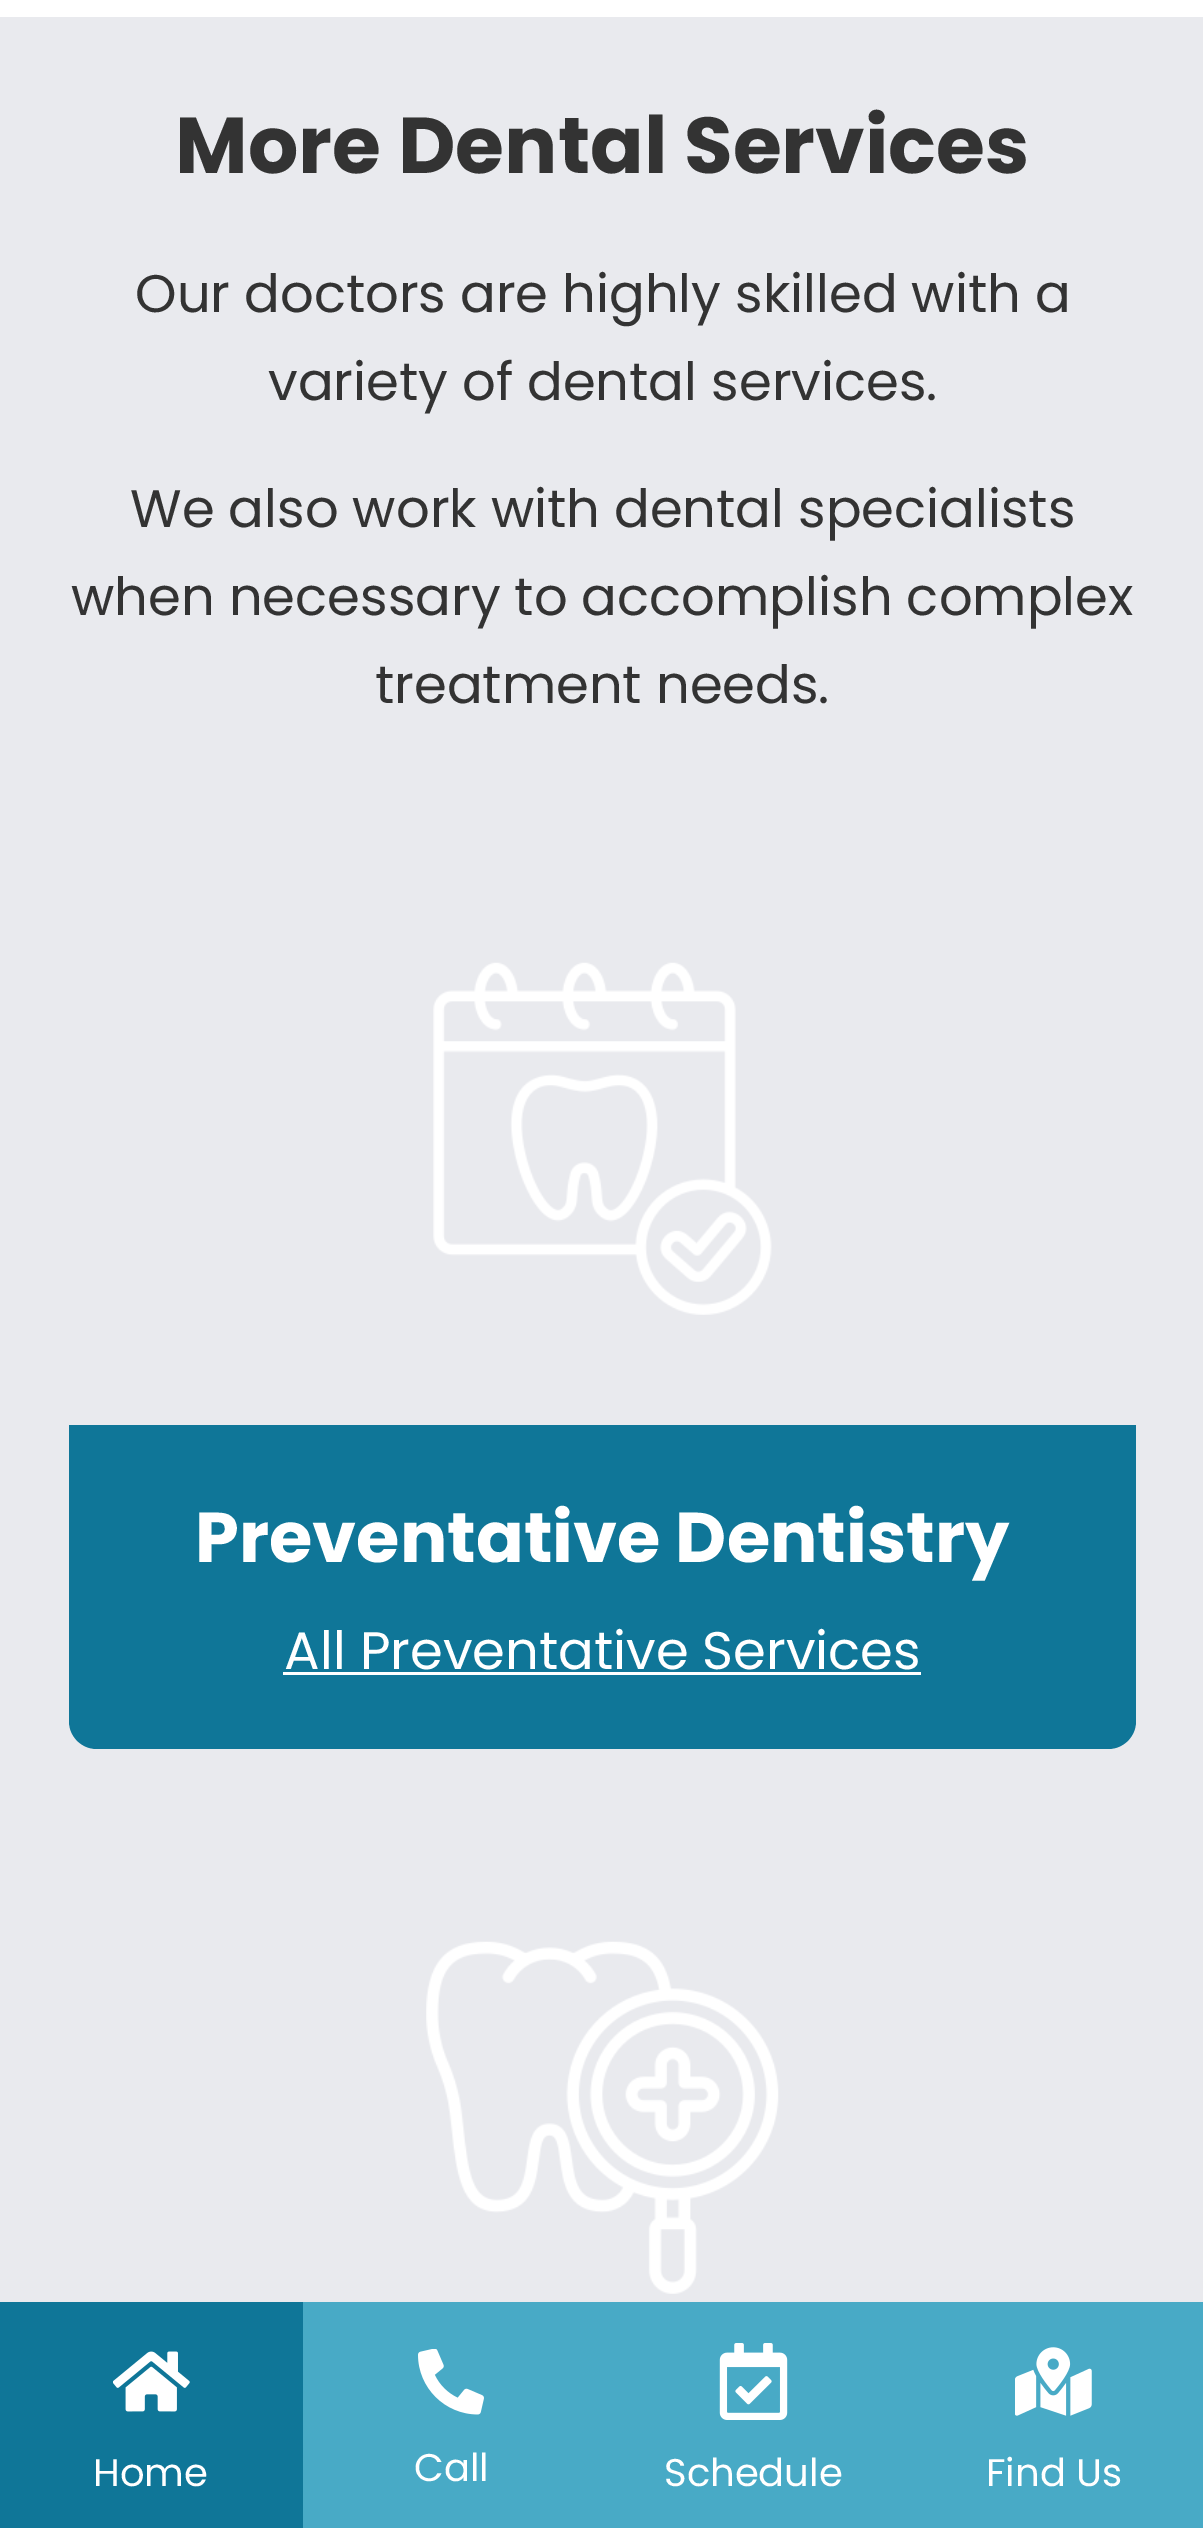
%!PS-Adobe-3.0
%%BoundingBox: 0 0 1203 2528
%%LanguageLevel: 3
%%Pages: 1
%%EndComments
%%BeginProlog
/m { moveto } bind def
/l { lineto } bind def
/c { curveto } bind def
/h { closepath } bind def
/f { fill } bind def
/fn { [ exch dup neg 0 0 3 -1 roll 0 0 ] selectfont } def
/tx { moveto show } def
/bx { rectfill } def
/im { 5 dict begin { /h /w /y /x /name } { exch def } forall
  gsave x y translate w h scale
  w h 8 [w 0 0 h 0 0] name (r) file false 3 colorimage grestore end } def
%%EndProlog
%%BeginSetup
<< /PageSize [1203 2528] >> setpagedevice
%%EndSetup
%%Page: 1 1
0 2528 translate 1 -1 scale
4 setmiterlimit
1 setgray
0 0 1203 2528 bx
0.914 0.918 0.933 setrgbcolor
0 17 1203 2285 bx
/Poppins-Bold 79.25 fn
0.2 setgray
(More Dental Services) 175 173 tx
/Poppins-Regular 52.8 fn
(Our doctors are highly skilled with a) 135 312 tx
(variety of dental services.) 268 400 tx
(We also work with dental specialists) 130 527 tx
(when necessary to accomplish complex) 71 615 tx
(treatment needs.) 375 703 tx
(image0.raw) 433 962 339 353 im
0.059 0.463 0.596 setrgbcolor
69 1425 1067 184 bx
/Poppins-Bold 70.4 fn
1 setgray
(Preventative Dentistry) 195 1562 tx
0.059 0.463 0.596 setrgbcolor
69 1609 m 1136 1609 l 1136 1721 l 1136 1736.5 1123.5 1749 1108 1749 c 97 1749 l 81.5 1749 69 1736.5 69 1721 c h f
/Poppins-Regular 52.8 fn
1 setgray
(All Preventative Services) 284 1669 tx
283 1672 638 3 bx
(image1.raw) 426 1941 353 353 im
0.059 0.463 0.596 setrgbcolor
0 2302 303 226 bx
(image2.raw) 113 2351 77 61 im
/Poppins-Regular 38.5 fn
1 setgray
(Home) 93 2486 tx
0.282 0.667 0.776 setrgbcolor
303 2302 900 226 bx
(image3.raw) 418 2349 66 66 im
1 setgray
(Call) 414 2481 tx
(image4.raw) 719 2343 69 77 im
(Schedule) 664 2486 tx
(image5.raw) 1015 2347 77 69 im
(Find Us) 986 2486 tx
showpage
%%EOF
